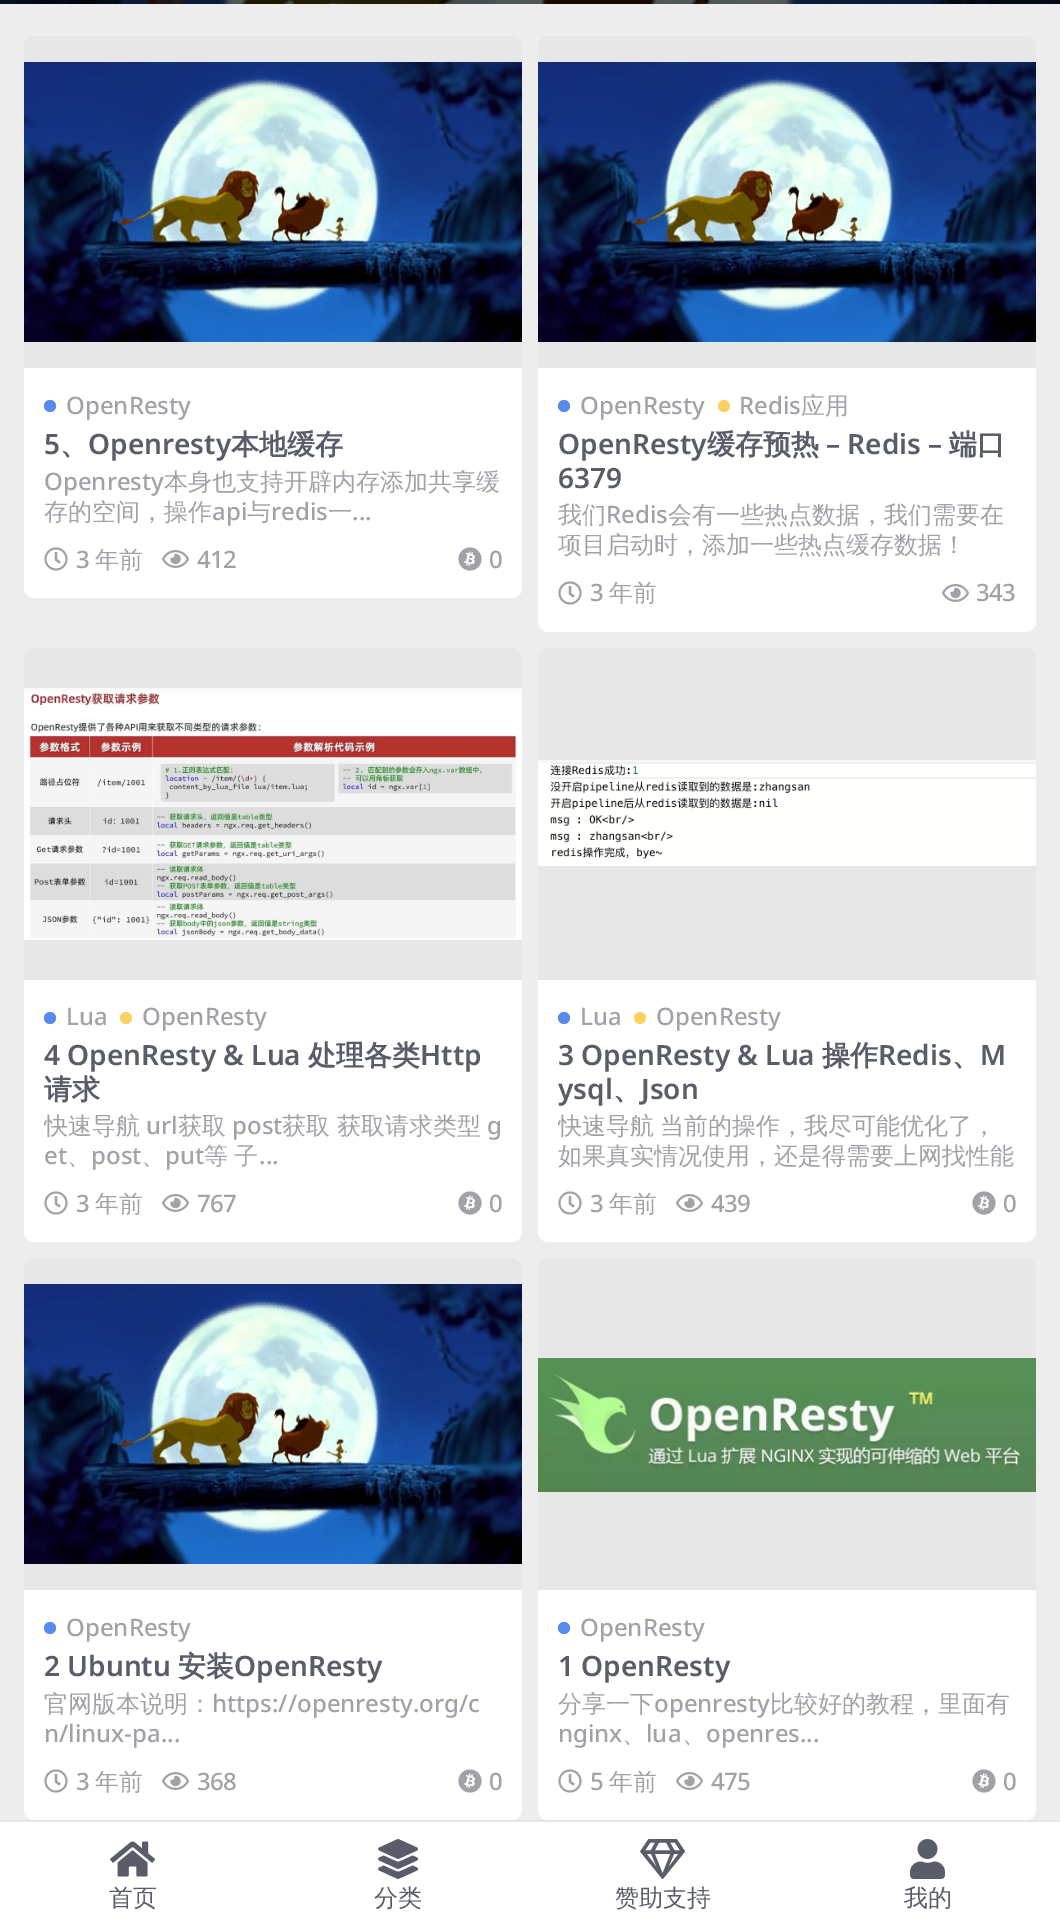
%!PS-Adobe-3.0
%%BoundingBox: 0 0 1060 1925
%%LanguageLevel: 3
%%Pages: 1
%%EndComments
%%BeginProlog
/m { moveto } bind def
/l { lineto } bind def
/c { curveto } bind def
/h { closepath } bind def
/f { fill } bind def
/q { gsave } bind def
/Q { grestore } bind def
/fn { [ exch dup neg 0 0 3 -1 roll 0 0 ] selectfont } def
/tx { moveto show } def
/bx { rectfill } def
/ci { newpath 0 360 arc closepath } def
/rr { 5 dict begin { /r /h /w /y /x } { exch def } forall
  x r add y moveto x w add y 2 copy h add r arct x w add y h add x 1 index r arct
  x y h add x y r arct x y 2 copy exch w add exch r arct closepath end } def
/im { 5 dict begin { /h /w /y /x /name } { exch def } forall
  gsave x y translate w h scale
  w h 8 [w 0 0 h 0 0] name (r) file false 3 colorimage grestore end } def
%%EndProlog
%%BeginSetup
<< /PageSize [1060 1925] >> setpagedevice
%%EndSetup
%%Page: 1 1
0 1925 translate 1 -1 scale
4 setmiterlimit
0.929 setgray
0 0 1060 1925 bx
(image0.raw) 0 0 1060 4 im
1 setgray
24 36 498 562 10 rr f
0.906 setgray
34 36 m 512 36 l 517.5 36 522 40.5 522 46 c 522 368 l 24 368 l 24 46 l 24 40.5 28.5 36 34 36 c h f
(image1.raw) 24 62 498 280 im
0.349 0.541 0.933 setrgbcolor
50 406 6 ci f
/NotoSans-Medium 24 fn
0.631 0.631 0.659 setrgbcolor
(OpenResty) 66 414 tx
/NotoSans-SemiBold 28 fn
0.349 0.365 0.412 setrgbcolor
(5) 44 454 tx
/WenQuanYiZenHei-Bold 28 fn
(、) 60 454 tx
/NotoSans-SemiBold 28 fn
(Openresty) 88 454 tx
/WenQuanYiZenHei-Bold 28 fn
(本地缓存) 231 454 tx
/NotoSans-Medium 24 fn
0.631 0.631 0.659 setrgbcolor
(Openresty) 44 490 tx
/WenQuanYiZenHei-Medium 24 fn
(本身也支持开辟内存添加共享缓) 164 490 tx
(存的空间，操作) 44 520 tx
/NotoSans-Medium 24 fn
(api) 212 520 tx
/WenQuanYiZenHei-Medium 24 fn
(与) 247 520 tx
/NotoSans-Medium 24 fn
(redis) 271 520 tx
/WenQuanYiZenHei-Medium 24 fn
(一) 328 520 tx
/NotoSans-Medium 24 fn
(...) 352 520 tx
(image2.raw) 44 547 24 24 im
76 568 m -0.5 0 (3) ashow
/WenQuanYiZenHei-Medium 24 fn
95 568 m -0.5 0 (年前) ashow
(image3.raw) 162 550 27 18 im
/NotoSans-Medium 24 fn
197 568 m -0.5 0 (412) ashow
(image4.raw) 458 547 24 24 im
489 568 m -0.5 0 (0) ashow
1 setgray
538 36 498 596 10 rr f
0.906 setgray
548 36 m 1026 36 l 1031.5 36 1036 40.5 1036 46 c 1036 368 l 538 368 l 538 46 l 538 40.5 542.5 36 548 36 c h f
(image1.raw) 538 62 498 280 im
0.349 0.541 0.933 setrgbcolor
564 406 6 ci f
0.631 0.631 0.659 setrgbcolor
(OpenResty) 580 414 tx
0.976 0.824 0.384 setrgbcolor
724 406 6 ci f
0.631 0.631 0.659 setrgbcolor
(Redis) 739 414 tx
/WenQuanYiZenHei-Medium 24 fn
(应用) 801 414 tx
/NotoSans-SemiBold 28 fn
0.349 0.365 0.412 setrgbcolor
(OpenResty) 558 454 tx
/WenQuanYiZenHei-Bold 28 fn
(缓存预热) 707 454 tx
/NotoSans-SemiBold 28 fn
(– Redis –) 826 454 tx
/WenQuanYiZenHei-Bold 28 fn
(端口) 949 454 tx
/NotoSans-SemiBold 28 fn
(6379) 558 488 tx
/WenQuanYiZenHei-Medium 24 fn
0.631 0.631 0.659 setrgbcolor
(我们) 558 523 tx
/NotoSans-Medium 24 fn
(Redis) 606 523 tx
/WenQuanYiZenHei-Medium 24 fn
(会有一些热点数据，我们需要在) 668 523 tx
(项目启动时，添加一些热点缓存数据！) 558 553 tx
(image2.raw) 558 581 24 24 im
/NotoSans-Medium 24 fn
590 601 m -0.5 0 (3) ashow
/WenQuanYiZenHei-Medium 24 fn
609 601 m -0.5 0 (年前) ashow
(image3.raw) 942 584 27 18 im
/NotoSans-Medium 24 fn
976 601 m -0.5 0 (343) ashow
1 setgray
24 648 498 594 10 rr f
0.906 setgray
34 648 m 512 648 l 517.5 648 522 652.5 522 658 c 522 980 l 24 980 l 24 658 l 24 652.5 28.5 648 34 648 c h f
(image5.raw) 24 688 498 252 im
0.349 0.541 0.933 setrgbcolor
50 1018 6 ci f
0.631 0.631 0.659 setrgbcolor
(Lua) 66 1025 tx
0.976 0.824 0.384 setrgbcolor
126 1018 6 ci f
0.631 0.631 0.659 setrgbcolor
(OpenResty) 142 1025 tx
/NotoSans-SemiBold 28 fn
0.349 0.365 0.412 setrgbcolor
(4 OpenResty & Lua) 44 1065 tx
/WenQuanYiZenHei-Bold 28 fn
(处理各类) 308 1065 tx
/NotoSans-SemiBold 28 fn
(Http) 420 1065 tx
/WenQuanYiZenHei-Bold 28 fn
(请求) 44 1099 tx
q
44 1110 458 60 rectclip
/WenQuanYiZenHei-Medium 24 fn
0.631 0.631 0.659 setrgbcolor
(快速导航) 44 1134 tx
Q
/NotoSans-Medium 24 fn
0.631 0.631 0.659 setrgbcolor
(url) 146 1134 tx
/WenQuanYiZenHei-Medium 24 fn
(获取) 178 1134 tx
/NotoSans-Medium 24 fn
(post) 232 1134 tx
/WenQuanYiZenHei-Medium 24 fn
(获取 获取请求类型) 282 1134 tx
/NotoSans-Medium 24 fn
(g) 487 1134 tx
(et) 44 1164 tx
/WenQuanYiZenHei-Medium 24 fn
(、) 67 1164 tx
/NotoSans-Medium 24 fn
(post) 91 1164 tx
/WenQuanYiZenHei-Medium 24 fn
(、) 141 1164 tx
/NotoSans-Medium 24 fn
(put) 165 1164 tx
/WenQuanYiZenHei-Medium 24 fn
204 1164 m -1 0 32 (等 子) widthshow
/NotoSans-Medium 24 fn
(...) 259 1164 tx
(image2.raw) 44 1191 24 24 im
76 1212 m -0.5 0 (3) ashow
/WenQuanYiZenHei-Medium 24 fn
95 1212 m -0.5 0 (年前) ashow
(image3.raw) 162 1194 27 18 im
/NotoSans-Medium 24 fn
197 1212 m -0.5 0 (767) ashow
(image4.raw) 458 1191 24 24 im
489 1212 m -0.5 0 (0) ashow
1 setgray
538 648 498 594 10 rr f
0.906 setgray
548 648 m 1026 648 l 1031.5 648 1036 652.5 1036 658 c 1036 980 l 538 980 l 538 658 l 538 652.5 542.5 648 548 648 c h f
(image6.raw) 538 760 498 106 im
0.349 0.541 0.933 setrgbcolor
564 1018 6 ci f
0.631 0.631 0.659 setrgbcolor
(Lua) 580 1025 tx
0.976 0.824 0.384 setrgbcolor
640 1018 6 ci f
0.631 0.631 0.659 setrgbcolor
(OpenResty) 656 1025 tx
/NotoSans-SemiBold 28 fn
0.349 0.365 0.412 setrgbcolor
(3 OpenResty & Lua) 558 1065 tx
/WenQuanYiZenHei-Bold 28 fn
(操作) 822 1065 tx
/NotoSans-SemiBold 28 fn
(Redis) 878 1065 tx
/WenQuanYiZenHei-Bold 28 fn
(、) 952 1065 tx
/NotoSans-SemiBold 28 fn
(M) 980 1065 tx
(ysql) 558 1099 tx
/WenQuanYiZenHei-Bold 28 fn
(、) 613 1099 tx
/NotoSans-SemiBold 28 fn
(Json) 641 1099 tx
q
558 1110 458 60 rectclip
/WenQuanYiZenHei-Medium 24 fn
0.631 0.631 0.659 setrgbcolor
558 1134 m -1 0 32 (快速导航 当前的操作，我尽可能优化了，) widthshow
Q
/WenQuanYiZenHei-Medium 24 fn
0.631 0.631 0.659 setrgbcolor
(如果真实情况使用，还是得需要上网找性能) 558 1164 tx
(image2.raw) 558 1191 24 24 im
/NotoSans-Medium 24 fn
590 1212 m -0.5 0 (3) ashow
/WenQuanYiZenHei-Medium 24 fn
609 1212 m -0.5 0 (年前) ashow
(image3.raw) 676 1194 27 18 im
/NotoSans-Medium 24 fn
711 1212 m -0.5 0 (439) ashow
(image4.raw) 972 1191 24 24 im
1003 1212 m -0.5 0 (0) ashow
1 setgray
24 1258 498 562 10 rr f
0.906 setgray
34 1258 m 512 1258 l 517.5 1258 522 1262.5 522 1268 c 522 1590 l 24 1590 l 24 1268 l 24 1262.5 28.5 1258 34 1258 c h f
(image7.raw) 24 1284 498 280 im
0.349 0.541 0.933 setrgbcolor
50 1628 6 ci f
0.631 0.631 0.659 setrgbcolor
(OpenResty) 66 1636 tx
/NotoSans-SemiBold 28 fn
0.349 0.365 0.412 setrgbcolor
(2 Ubuntu) 44 1676 tx
/WenQuanYiZenHei-Bold 28 fn
(安装) 178 1676 tx
/NotoSans-SemiBold 28 fn
(OpenResty) 234 1676 tx
/WenQuanYiZenHei-Medium 24 fn
0.631 0.631 0.659 setrgbcolor
(官网版本说明：) 44 1712 tx
/NotoSans-Medium 24 fn
(https://openresty.org/c) 212 1712 tx
(n/linux-pa...) 44 1742 tx
(image2.raw) 44 1769 24 24 im
76 1790 m -0.5 0 (3) ashow
/WenQuanYiZenHei-Medium 24 fn
95 1790 m -0.5 0 (年前) ashow
(image3.raw) 162 1772 27 18 im
/NotoSans-Medium 24 fn
197 1790 m -0.5 0 (368) ashow
(image4.raw) 458 1769 24 24 im
489 1790 m -0.5 0 (0) ashow
1 setgray
538 1258 498 562 10 rr f
0.906 setgray
548 1258 m 1026 1258 l 1031.5 1258 1036 1262.5 1036 1268 c 1036 1590 l 538 1590 l 538 1268 l 538 1262.5 542.5 1258 548 1258 c h f
(image8.raw) 538 1358 498 134 im
0.349 0.541 0.933 setrgbcolor
564 1628 6 ci f
0.631 0.631 0.659 setrgbcolor
(OpenResty) 580 1636 tx
/NotoSans-SemiBold 28 fn
0.349 0.365 0.412 setrgbcolor
(1 OpenResty) 558 1676 tx
/WenQuanYiZenHei-Medium 24 fn
0.631 0.631 0.659 setrgbcolor
(分享一下) 558 1712 tx
/NotoSans-Medium 24 fn
(openresty) 654 1712 tx
/WenQuanYiZenHei-Medium 24 fn
(比较好的教程，里面有) 770 1712 tx
/NotoSans-Medium 24 fn
(nginx) 558 1742 tx
/WenQuanYiZenHei-Medium 24 fn
(、) 622 1742 tx
/NotoSans-Medium 24 fn
(lua) 646 1742 tx
/WenQuanYiZenHei-Medium 24 fn
(、) 682 1742 tx
/NotoSans-Medium 24 fn
(openres...) 706 1742 tx
(image2.raw) 558 1769 24 24 im
590 1790 m -0.5 0 (5) ashow
/WenQuanYiZenHei-Medium 24 fn
609 1790 m -0.5 0 (年前) ashow
(image3.raw) 676 1772 27 18 im
/NotoSans-Medium 24 fn
711 1790 m -0.5 0 (475) ashow
(image4.raw) 972 1769 24 24 im
1003 1790 m -0.5 0 (0) ashow
1 setgray
0 1820 1060 105 bx
0.902 setgray
0 1820 1060 2 1 rr f
(image9.raw) 110 1841 45 36 im
/WenQuanYiZenHei-Medium 24 fn
0.349 0.365 0.412 setrgbcolor
(首页) 109 1906 tx
(image10.raw) 378 1839 40 40 im
(分类) 374 1906 tx
(image11.raw) 640 1839 45 40 im
(赞助支持) 615 1906 tx
(image12.raw) 910 1839 35 40 im
(我的) 904 1906 tx
showpage
%%EOF
